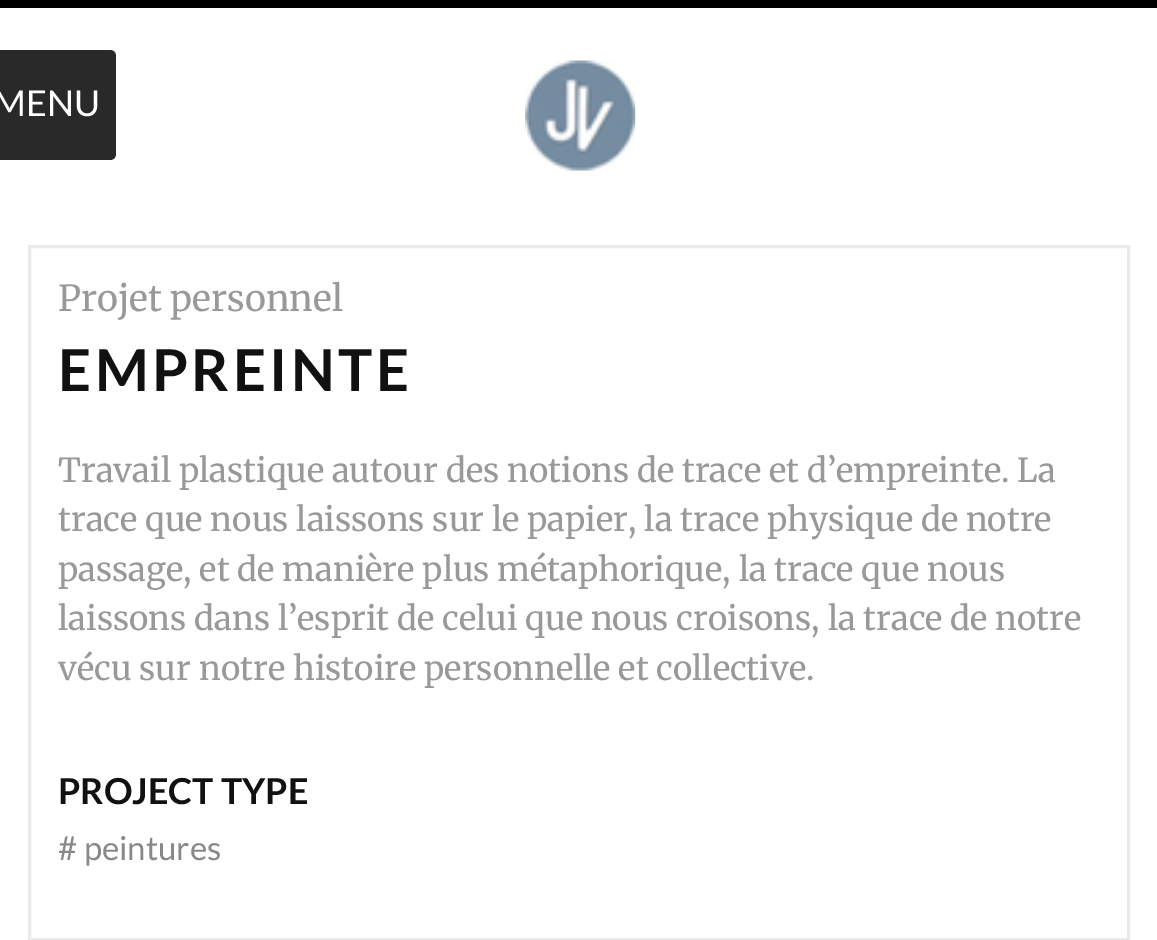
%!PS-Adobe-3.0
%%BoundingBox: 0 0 1157 940
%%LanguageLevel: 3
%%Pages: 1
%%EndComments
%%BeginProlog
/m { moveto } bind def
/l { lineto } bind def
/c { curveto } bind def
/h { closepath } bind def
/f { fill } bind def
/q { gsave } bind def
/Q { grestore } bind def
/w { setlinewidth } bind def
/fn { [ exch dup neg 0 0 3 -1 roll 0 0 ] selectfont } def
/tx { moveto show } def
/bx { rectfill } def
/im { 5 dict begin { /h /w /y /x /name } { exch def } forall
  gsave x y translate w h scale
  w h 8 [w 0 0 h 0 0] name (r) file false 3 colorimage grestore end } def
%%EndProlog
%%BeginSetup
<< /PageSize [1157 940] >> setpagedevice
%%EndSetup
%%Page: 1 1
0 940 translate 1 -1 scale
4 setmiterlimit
1 setgray
0 0 1157 940 bx
0.161 setgray
-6 50 m 110 50 l 113.5 50 116 52.5 116 56 c 116 154 l 116 157.5 113.5 160 110 160 c -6 160 l h f
/Lato-Regular 35.75 fn
1 setgray
(MENU) -7 116 tx
0 setgray
0 0 1157 8 bx
(image0.raw) 525 60 111 111 im
0.918 setgray
3 w
29.5 246.5 1099 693 rectstroke
/Merriweather-Light 35.75 fn
0.6 setgray
(Projet personnel) 58 311 tx
/Lato-Bold 57.75 fn
0.067 setgray
58 391 m 3.5 0 (EMPREINTE) ashow
/Merriweather-Light 33 fn
0.6 setgray
(Travail plastique autour des notions de trace et d’empreinte. La) 58 482 tx
(trace que nous laissons sur le papier, la trace physique de notre) 58 531 tx
(passage, et de manière plus métaphorique, la trace que nous) 58 581 tx
(laissons dans l’esprit de celui que nous croisons, la trace de notre) 58 630 tx
q
58 437 1042 284 rectclip
(vécu sur notre histoire personnelle et collective.) 58 680 tx
Q
/Lato-Bold 35.75 fn
0.067 setgray
(PROJECT TYPE) 58 804 tx
/Lato-Regular 33 fn
0.533 setgray
(# peintures) 58 860 tx
showpage
%%EOF
